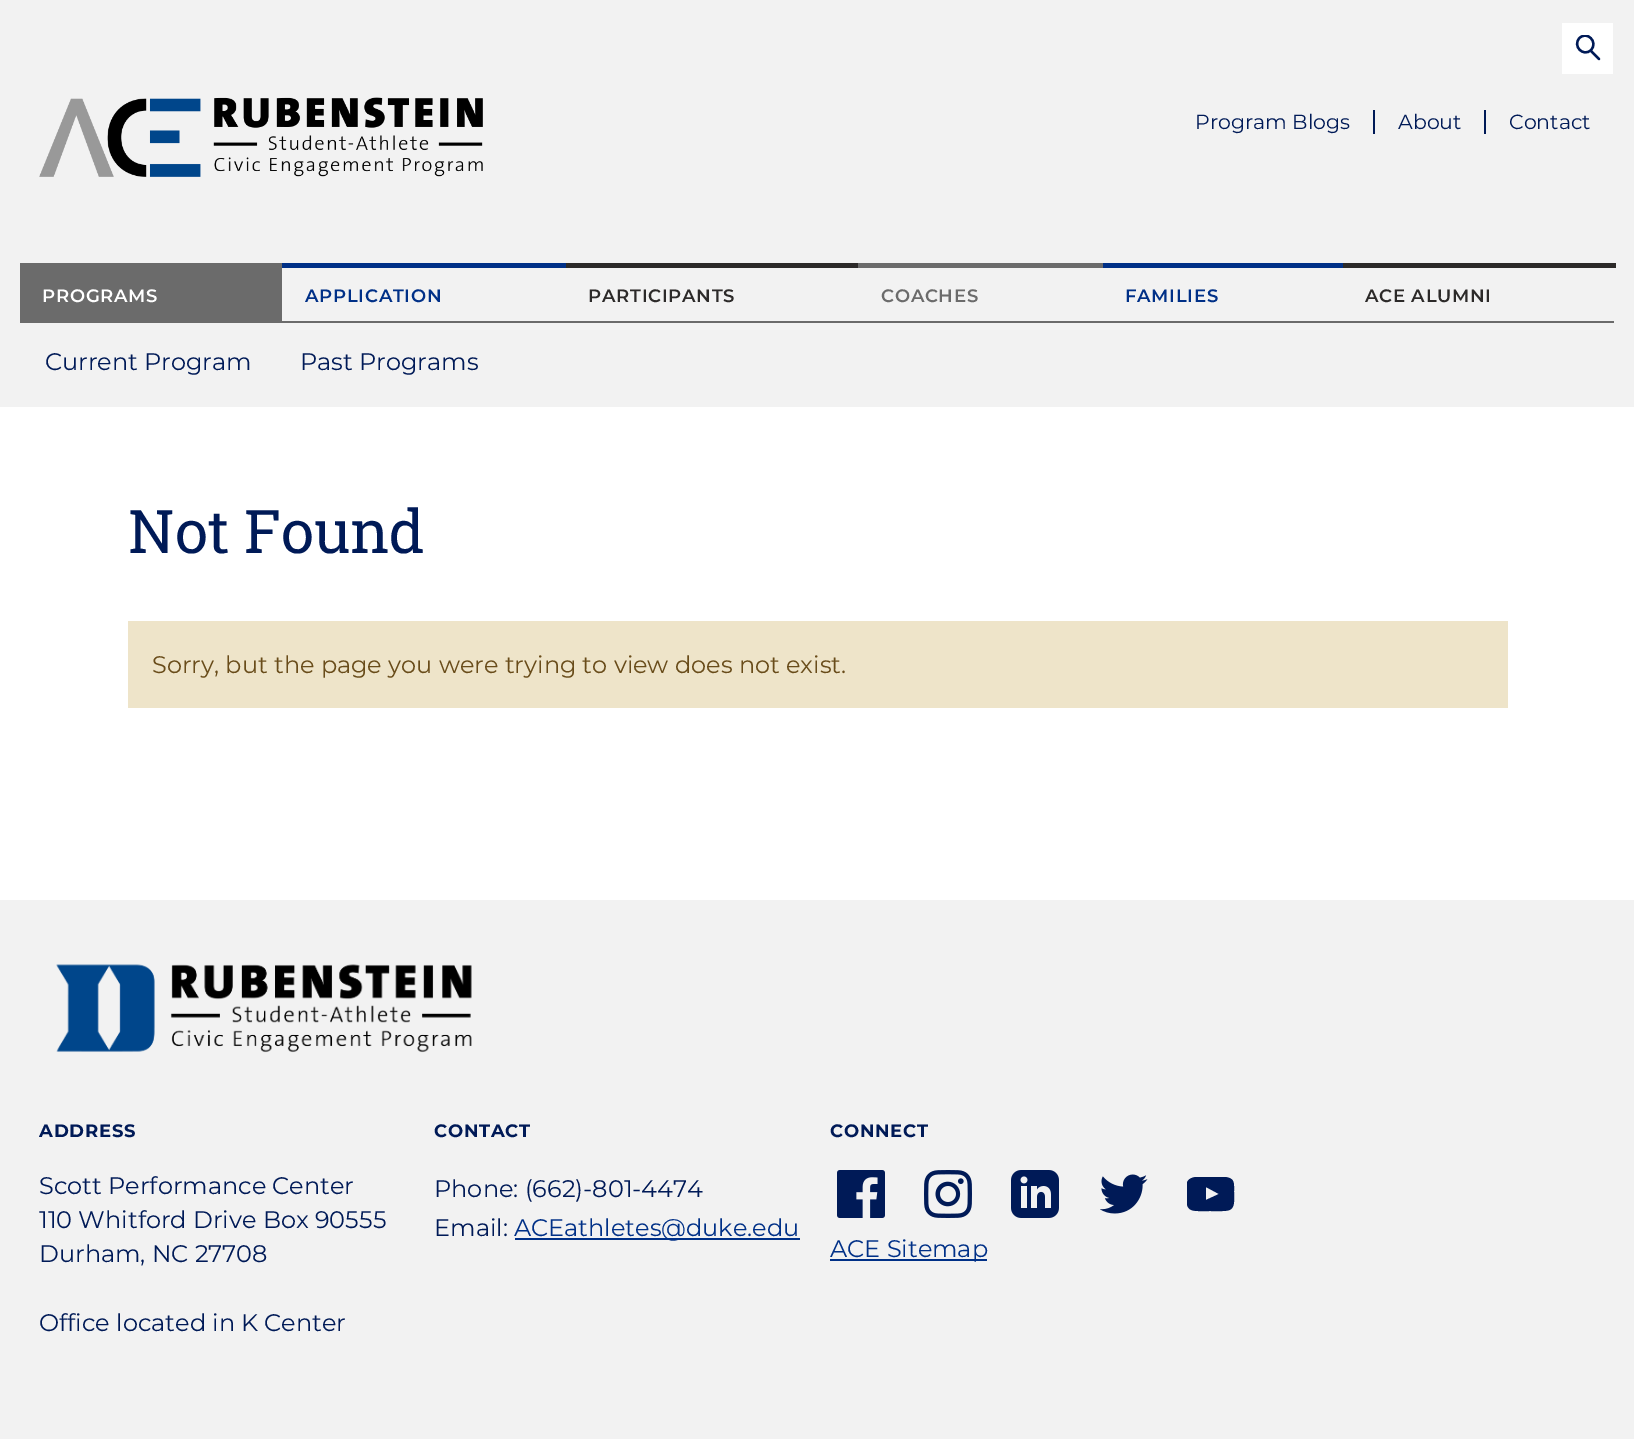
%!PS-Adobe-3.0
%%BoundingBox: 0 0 1634 1439
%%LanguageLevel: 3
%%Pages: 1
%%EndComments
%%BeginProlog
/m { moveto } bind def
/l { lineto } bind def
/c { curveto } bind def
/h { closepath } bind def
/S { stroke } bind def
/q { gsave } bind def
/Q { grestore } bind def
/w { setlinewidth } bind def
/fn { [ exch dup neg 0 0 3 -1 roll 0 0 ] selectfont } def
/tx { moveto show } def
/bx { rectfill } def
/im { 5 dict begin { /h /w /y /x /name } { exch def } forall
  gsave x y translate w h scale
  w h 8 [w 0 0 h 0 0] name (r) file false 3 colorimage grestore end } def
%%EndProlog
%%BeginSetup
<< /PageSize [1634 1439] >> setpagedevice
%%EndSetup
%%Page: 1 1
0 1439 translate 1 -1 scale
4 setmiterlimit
1 setgray
0 0 1634 1439 bx
0.949 setgray
0 0 1634 407 bx
(image0.raw) 39 97 444 80 im
1 setgray
1562 23 51 51 bx
0 0.102 0.341 setrgbcolor
2.3 w
1 setlinecap
1591.5 51.5 m 1599 59 l S
q
1575 35 26 25 rectclip
0 setlinecap
1579.5 38 m 1587 30.5 1598.5 42 1591 50 c 1583.5 57.5 1572 46 1579.5 38 c h S
Q
/Montserrat-Regular 20.5 fn
(Program Blogs) 1195 129 tx
1373 110 2 24 bx
(About) 1398 129 tx
1484 110 2 24 bx
(Contact) 1509 129 tx
0.42 setgray
282 321 1332 2 bx
20 263 262 60 bx
/Montserrat-SemiBold 18 fn
1 setgray
42 302 m 0.75 0 (PROGRAMS) ashow
0 0.188 0.529 setrgbcolor
282 263 284 5 bx
305 302 m 0.75 0 (APPLICATION) ashow
0.173 0.165 0.161 setrgbcolor
566 263 292 5 bx
588 302 m 0.75 0 (PARTICIPANTS) ashow
0.42 setgray
858 263 245 5 bx
881 302 m 0.75 0 (COACHES) ashow
0 0.188 0.529 setrgbcolor
1103 263 240 5 bx
1125 302 m 0.75 0 (FAMILIES) ashow
0.173 0.165 0.161 setrgbcolor
1343 263 273 5 bx
1365 302 m 0.75 0 (ACE ALUMNI) ashow
/Montserrat-Regular 24 fn
0 0.102 0.341 setrgbcolor
(Current Program) 45 370 tx
(Past Programs) 300 370 tx
/RobotoSlab-Regular 60 fn
(Not Found) 128 553 tx
0.933 0.894 0.788 setrgbcolor
128 621 1380 87 bx
/Montserrat-Regular 24 fn
0.412 0.298 0.102 setrgbcolor
(Sorry, but the page you were trying to view does not exist.) 152 673 tx
0.949 setgray
0 900 1634 539 bx
(image1.raw) 56 964 416 89 im
/Montserrat-Bold 18 fn
0 0.102 0.341 setrgbcolor
39 1137 m 0.75 0 (ADDRESS) ashow
/Montserrat-Regular 24 fn
(Scott Performance Center) 39 1194 tx
(110 Whitford Drive Box 90555) 39 1228 tx
(Durham, NC 27708) 39 1262 tx
(Office located in K Center) 39 1331 tx
/Montserrat-Bold 18 fn
434 1137 m 0.75 0 (CONTACT) ashow
/Montserrat-Regular 24 fn
(Phone: \(662\)-801-4474) 434 1197 tx
(Email:) 434 1236 tx
0 0.188 0.529 setrgbcolor
515 1238 285 2 bx
(ACEathletes@duke.edu) 514 1236 tx
/Montserrat-Bold 18 fn
0 0.102 0.341 setrgbcolor
830 1137 m 0.75 0 (CONNECT) ashow
(image2.raw) 837 1170 48 48 im
(image3.raw) 924 1170 48 48 im
(image4.raw) 1011 1170 48 48 im
(image5.raw) 1100 1174 48 40 im
q
1187 1170 48 48 rectclip
1186 1192 m 1186 1184 1186 1178 1196 1177 c 1225 1177 l 1235 1178 1234 1183 1234 1192 c 1235 1213 1232 1211 1210 1211 c 1189 1211 1186 1213 1186 1192 c h 1206 1200 m 1206 1187 l 1219 1194 l h eofill
Q
0 0.188 0.529 setrgbcolor
830 1259 157 2 bx
/Montserrat-Regular 24 fn
(ACE Sitemap) 830 1257 tx
showpage
%%EOF
